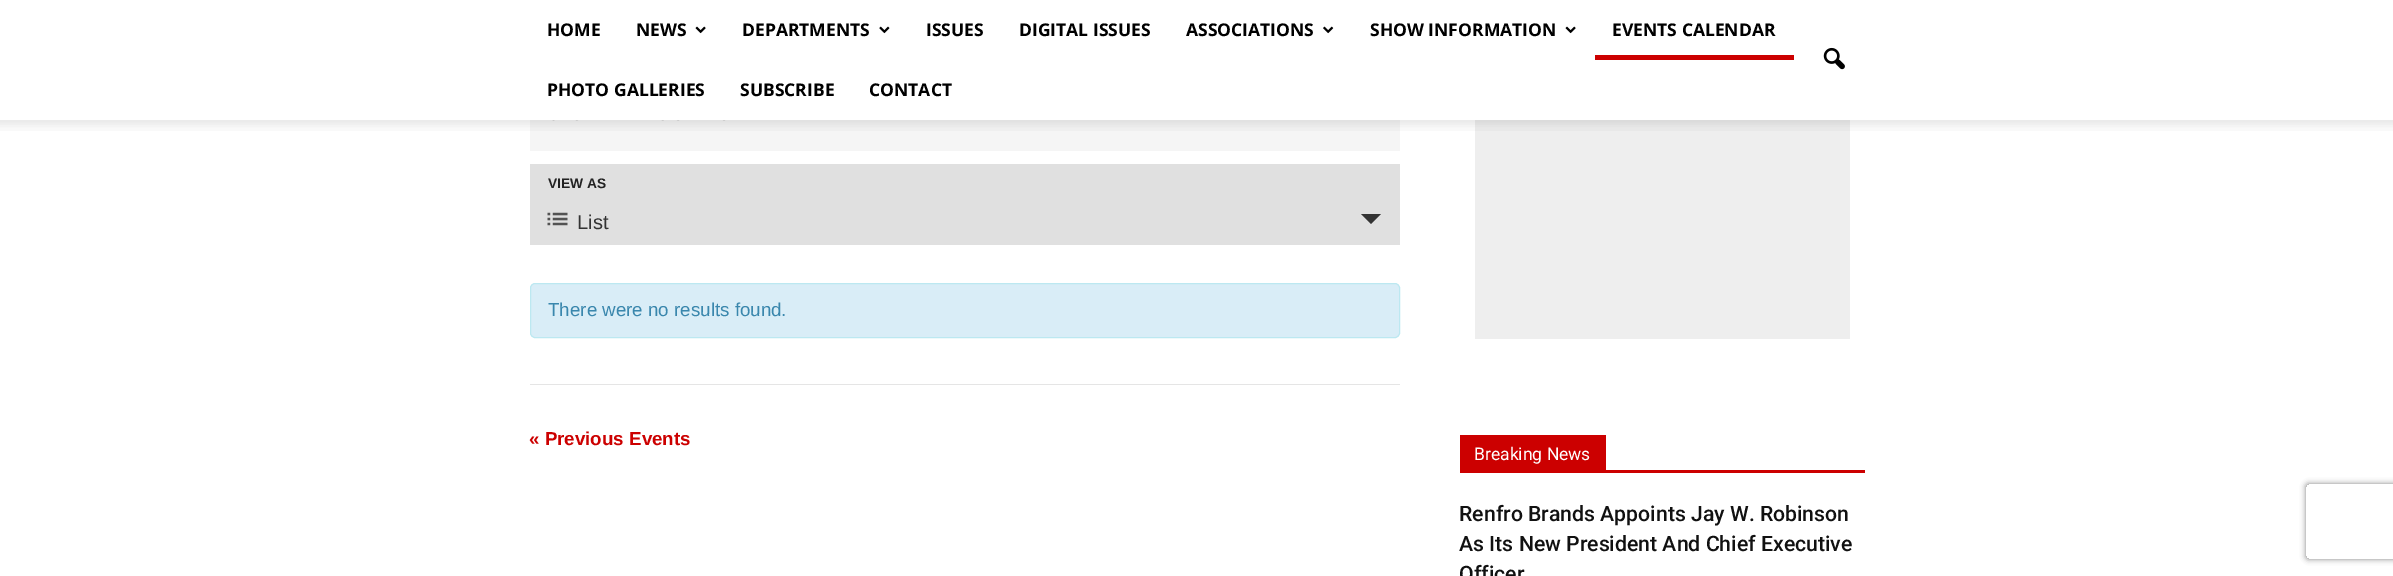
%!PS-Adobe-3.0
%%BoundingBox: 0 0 2393 576
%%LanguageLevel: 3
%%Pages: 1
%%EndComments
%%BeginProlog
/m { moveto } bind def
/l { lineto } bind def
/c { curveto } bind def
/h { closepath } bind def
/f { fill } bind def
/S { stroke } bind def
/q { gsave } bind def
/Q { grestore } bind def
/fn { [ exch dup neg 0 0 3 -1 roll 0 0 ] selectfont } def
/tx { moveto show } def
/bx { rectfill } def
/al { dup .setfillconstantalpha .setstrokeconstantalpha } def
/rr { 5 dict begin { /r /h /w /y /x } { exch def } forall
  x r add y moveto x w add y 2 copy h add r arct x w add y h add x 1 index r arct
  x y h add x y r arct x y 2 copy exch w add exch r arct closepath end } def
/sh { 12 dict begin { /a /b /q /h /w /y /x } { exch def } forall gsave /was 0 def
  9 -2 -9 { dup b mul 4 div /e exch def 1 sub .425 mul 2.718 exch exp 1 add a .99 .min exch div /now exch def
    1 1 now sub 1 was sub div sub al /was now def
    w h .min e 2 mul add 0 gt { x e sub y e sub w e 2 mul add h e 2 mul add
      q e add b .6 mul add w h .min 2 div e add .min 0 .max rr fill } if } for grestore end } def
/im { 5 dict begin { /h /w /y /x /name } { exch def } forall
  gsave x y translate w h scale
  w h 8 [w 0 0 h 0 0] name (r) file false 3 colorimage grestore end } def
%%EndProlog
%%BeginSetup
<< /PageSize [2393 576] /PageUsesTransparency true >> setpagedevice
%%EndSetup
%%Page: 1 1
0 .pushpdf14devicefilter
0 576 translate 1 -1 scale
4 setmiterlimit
1 setgray
0 0 2393 576 bx
/OpenSans-Bold 17.5 fn
0 setgray
(HOME) 547 36 tx
(NEWS) 636 36 tx
(image0.raw) 695 26 11 8 im
(DEPARTMENTS) 742 36 tx
(image1.raw) 879 26 11 8 im
(ISSUES) 926 36 tx
(DIGITAL ISSUES) 1019 36 tx
(ASSOCIATIONS) 1186 36 tx
(image2.raw) 1323 26 11 8 im
(SHOW INFORMATION) 1370 36 tx
(image0.raw) 1565 26 11 8 im
(EVENTS CALENDAR) 1612 36 tx
0.8 0 0 setrgbcolor
1595 55 199 5 bx
0 setgray
(PHOTO GALLERIES) 547 96 tx
(SUBSCRIBE) 740 96 tx
(CONTACT) 869 96 tx
(image3.raw) 1823 47 22 23 im
0.961 setgray
530 120 870 31 bx
0.933 setgray
1475 120 375 219 bx
(image4.raw) 0 120 2393 11 im
0.878 setgray
530 164 870 81 bx
/LiberationSans-Bold 13.75 fn
0.133 setgray
(VIEW AS) 548 188 tx
(image5.raw) 547 212 21 14 im
/LiberationSans-Regular 20 fn
0.2 setgray
(List) 577 229 tx
1361 214 m 1381 214 l 1371 224 l h f
0.851 0.929 0.969 setrgbcolor
530.5 283.5 869 54 4.5 rr q f Q
0.737 0.91 0.945 setrgbcolor
S
/LiberationSans-Regular 18.75 fn
0.227 0.529 0.678 setrgbcolor
(There were no results found.) 548 316 tx
0.898 setgray
530 384 870 1 bx
/LiberationSans-Bold 18.75 fn
0.8 0 0 setrgbcolor
(« Previous Events) 529 445 tx
1460 470 405 3 bx
1460 435 146 35 bx
/Roboto-Regular 17.5 fn
1 setgray
(Breaking News) 1474 460 tx
/Roboto-Medium 21.25 fn
0.067 setgray
(Renfro Brands Appoints Jay W. Robinson) 1459 521 tx
(As Its New President And Chief Executive) 1459 551 tx
(Officer) 1459 581 tx
q
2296 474 m 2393 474 l 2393 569 l 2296 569 l h 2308.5 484 m 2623.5 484 l 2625 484 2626 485 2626 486.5 c 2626 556.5 l 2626 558 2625 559 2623.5 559 c 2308.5 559 l 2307 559 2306 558 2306 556.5 c 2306 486.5 l 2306 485 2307 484 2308.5 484 c h eoclip newpath
0.502 setgray
2306 484 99 75 2.5 3 1 sh
Q
.poppdf14devicefilter showpage
%%EOF
